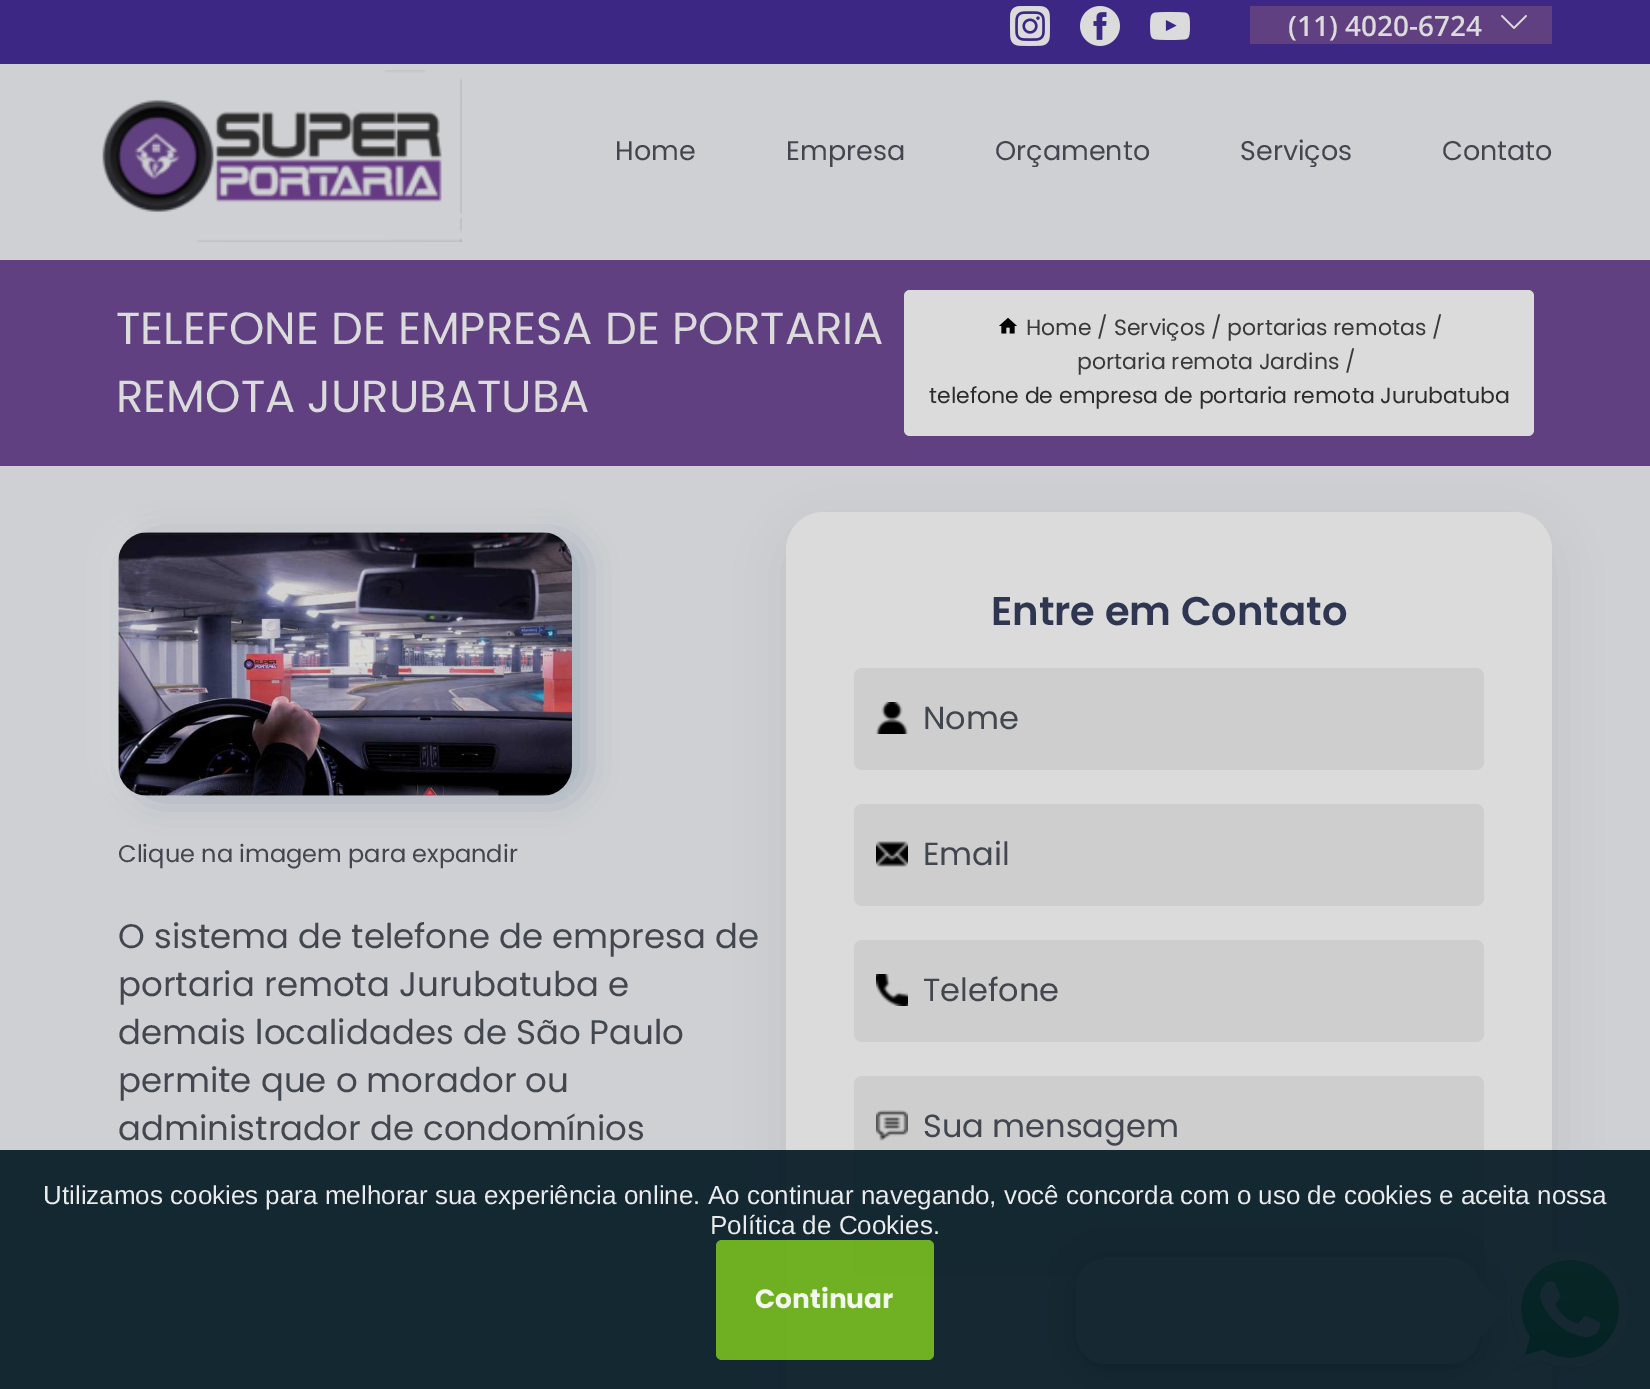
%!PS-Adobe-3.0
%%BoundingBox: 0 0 1650 1389
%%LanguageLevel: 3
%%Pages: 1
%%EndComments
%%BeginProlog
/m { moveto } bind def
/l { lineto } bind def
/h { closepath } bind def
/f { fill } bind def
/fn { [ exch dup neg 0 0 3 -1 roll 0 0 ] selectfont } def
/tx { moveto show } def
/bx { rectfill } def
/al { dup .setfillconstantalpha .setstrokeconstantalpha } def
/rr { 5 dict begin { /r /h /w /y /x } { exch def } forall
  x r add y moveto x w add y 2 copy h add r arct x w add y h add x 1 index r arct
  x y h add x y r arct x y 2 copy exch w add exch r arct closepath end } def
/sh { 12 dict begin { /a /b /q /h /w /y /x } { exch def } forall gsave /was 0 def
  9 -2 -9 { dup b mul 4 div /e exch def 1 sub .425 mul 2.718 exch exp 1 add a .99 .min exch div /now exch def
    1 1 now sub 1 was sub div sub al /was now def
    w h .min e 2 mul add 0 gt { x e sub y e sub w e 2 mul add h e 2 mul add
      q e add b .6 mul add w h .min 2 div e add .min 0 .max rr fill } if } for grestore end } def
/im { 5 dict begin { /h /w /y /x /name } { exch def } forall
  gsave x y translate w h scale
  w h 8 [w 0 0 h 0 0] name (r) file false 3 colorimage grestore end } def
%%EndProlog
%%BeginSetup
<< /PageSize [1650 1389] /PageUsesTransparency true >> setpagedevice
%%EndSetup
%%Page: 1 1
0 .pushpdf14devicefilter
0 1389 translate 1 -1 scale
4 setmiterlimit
0.808 0.816 0.827 setrgbcolor
0 0 1650 1389 bx
0.235 0.153 0.518 setrgbcolor
0 0 1650 64 bx
(image0.raw) 1010 6 40 40 im
(image1.raw) 1080 6 40 40 im
(image2.raw) 1150 11 40 29 im
0.376 0.251 0.502 setrgbcolor
1250 6 302 38 bx
/OpenSans-SemiBold 28 fn
0.859 setgray
(\(11\) 4020-6724) 1288 36 tx
(image3.raw) 1501 15 26 14 im
(image4.raw) 102 70 360 172 im
/Poppins-Regular 27 fn
0.259 0.275 0.31 setrgbcolor
(Home) 615 160 tx
(Empresa) 786 160 tx
(Orçamento) 995 160 tx
(Serviços) 1240 160 tx
(Contato) 1442 160 tx
0.376 0.251 0.502 setrgbcolor
0 260 1650 206 bx
/Poppins-Regular 45 fn
0.859 setgray
(TELEFONE DE EMPRESA DE PORTARIA) 116 344 tx
(REMOTA JURUBATUBA) 116 412 tx
904 290 630 146 6 rr f
(image5.raw) 999 317 18 17 im
/Poppins-Regular 22 fn
0.227 setgray
(Home / Serviços / portarias remotas /) 1026 335 tx
(portaria remota Jardins /) 1077 369 tx
0.173 setgray
(telefone de empresa de portaria remota Jurubatuba) 929 403 tx
0.859 setgray
106 528 454 264 30 16 0.8 sh
0.459 0.557 0.643 setrgbcolor
130 536 454 264 30 16 0.48 sh
(image6.raw) 118 532 454 264 im
/Poppins-Regular 24 fn
0.259 0.275 0.31 setrgbcolor
(Clique na imagem para expandir) 118 862 tx
/Poppins-Regular 34 fn
(O sistema de telefone de empresa de) 118 948 tx
(portaria remota Jurubatuba e) 118 996 tx
(demais localidades de São Paulo) 118 1044 tx
(permite que o morador ou) 118 1092 tx
(administrador de condomínios) 118 1140 tx
0.502 0.529 0.557 setrgbcolor
786 528 766 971 38 24 0.2 sh
0.859 setgray
786 512 766 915 38 rr f
/Poppins-SemiBold 40 fn
0.18 0.212 0.322 setrgbcolor
(Entre em Contato) 991 625 tx
0.808 setgray
854 668 630 102 8 rr f
(image7.raw) 876 702 32 32 im
/Poppins-Regular 32 fn
0.259 0.275 0.31 setrgbcolor
(Nome) 923 729 tx
0.808 setgray
854 804 630 102 8 rr f
(image8.raw) 876 841 32 26 im
0.259 0.275 0.31 setrgbcolor
(Email) 923 865 tx
0.808 setgray
854 940 630 102 8 rr f
(image9.raw) 876 974 32 32 im
0.259 0.275 0.31 setrgbcolor
(Telefone) 923 1001 tx
0.808 setgray
854 1076 630 200 8 rr f
(image10.raw) 876 1110 32 31 im
0.259 0.275 0.31 setrgbcolor
(Sua mensagem) 923 1137 tx
0.047 0.102 0.125 setrgbcolor
1076 1262 404 106 30 16 0.32 sh
1076 1262 404 106 30 4 0.12 sh
0.859 setgray
1076 1258 404 106 30 rr f
1478 1340 m 1478 1280 l 1508 1310 l h f
(image11.raw) 1510 1250 120 120 im
0.91 al
0.008 0.09 0.133 setrgbcolor
0 1150 1650 239 bx
/LiberationSans-Regular 26 fn
1 al
0.918 0.922 0.925 setrgbcolor
(Utilizamos cookies para melhorar sua experiência online. Ao continuar navegando, você concorda com o uso de cookies e aceita nossa) 43 1204 tx
(Política de Cookies.) 710 1234 tx
0.91 al
0.471 0.745 0.125 setrgbcolor
716 1240 218 120 6 rr f
/Poppins-Bold 26.5 fn
1 al
0.949 0.973 0.922 setrgbcolor
(Continuar) 755 1308 tx
.poppdf14devicefilter showpage
%%EOF
